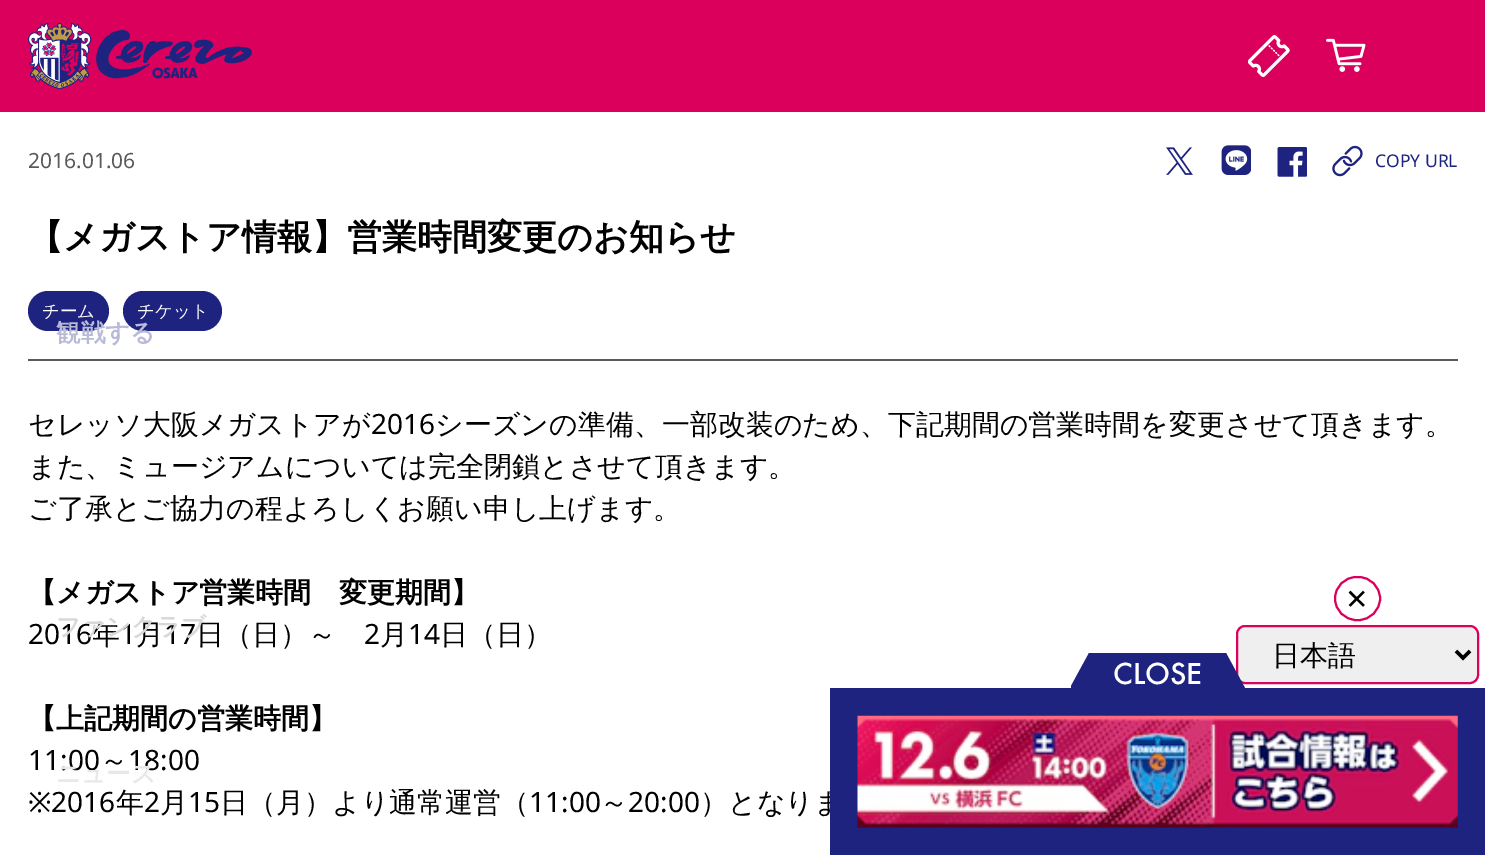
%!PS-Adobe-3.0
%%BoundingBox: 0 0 1485 855
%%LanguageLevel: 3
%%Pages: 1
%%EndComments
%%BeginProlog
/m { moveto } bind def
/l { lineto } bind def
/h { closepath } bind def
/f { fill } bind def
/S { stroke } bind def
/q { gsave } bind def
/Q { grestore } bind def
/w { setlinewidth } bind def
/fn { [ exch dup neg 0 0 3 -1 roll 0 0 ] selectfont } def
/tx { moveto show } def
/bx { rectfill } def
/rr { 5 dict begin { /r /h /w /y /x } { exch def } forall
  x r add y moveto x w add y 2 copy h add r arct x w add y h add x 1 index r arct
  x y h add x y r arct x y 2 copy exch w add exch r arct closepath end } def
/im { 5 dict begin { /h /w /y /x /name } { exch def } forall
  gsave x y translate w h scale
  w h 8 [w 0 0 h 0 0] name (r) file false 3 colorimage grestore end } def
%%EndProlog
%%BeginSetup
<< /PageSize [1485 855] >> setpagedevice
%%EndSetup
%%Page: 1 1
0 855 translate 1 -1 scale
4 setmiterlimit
1 setgray
0 0 1485 855 bx
/NotoSans-Regular 21 fn
0.353 setgray
(2016.01.06) 28 168 tx
(image0.raw) 1166 147 27 28 im
(image1.raw) 1221 145 30 30 im
(image2.raw) 1277 147 30 30 im
(image3.raw) 1332 145 31 32 im
/NotoSans-Regular 17.5 fn
0.118 0.137 0.502 setrgbcolor
(COPY URL) 1375 167 tx
/WenQuanYiZenHei-Bold 35 fn
0 setgray
(【メガストア情報】営業時間変更のお知らせ) 28 249 tx
0.353 setgray
28 359 1430 2 bx
0.118 0.137 0.502 setrgbcolor
28 291 81 40 20 rr f
/WenQuanYiZenHei-Medium 17.5 fn
1 setgray
(チーム) 42 317 tx
0.118 0.137 0.502 setrgbcolor
123 291 99 40 20 rr f
1 setgray
(チケット) 137 317 tx
/WenQuanYiZenHei-Medium 28 fn
0 setgray
(セレッソ大阪メガストアが) 28 434 tx
/NotoSans-Regular 28 fn
(2016) 371 434 tx
/WenQuanYiZenHei-Medium 28 fn
(シーズンの準備、一部改装のため、下記期間の営業時間を変更させて頂きます。) 435 434 tx
(また、ミュージアムについては完全閉鎖とさせて頂きます。) 28 476 tx
(ご了承とご協力の程よろしくお願い申し上げます。) 28 518 tx
/WenQuanYiZenHei-Bold 28 fn
(【メガストア営業時間　変更期間】) 28 602 tx
/NotoSans-Regular 28 fn
(2016) 28 644 tx
/WenQuanYiZenHei-Medium 28 fn
(年) 92 644 tx
/NotoSans-Regular 28 fn
(1) 120 644 tx
/WenQuanYiZenHei-Medium 28 fn
(月) 136 644 tx
/NotoSans-Regular 28 fn
(17) 164 644 tx
/WenQuanYiZenHei-Medium 28 fn
(日（日）～) 196 644 tx
/NotoSans-Regular 28 fn
(2) 364 644 tx
/WenQuanYiZenHei-Medium 28 fn
(月) 380 644 tx
/NotoSans-Regular 28 fn
(14) 408 644 tx
/WenQuanYiZenHei-Medium 28 fn
(日（日）) 440 644 tx
/WenQuanYiZenHei-Bold 28 fn
(【上記期間の営業時間】) 28 728 tx
/NotoSans-Regular 28 fn
(11:00) 28 770 tx
/WenQuanYiZenHei-Medium 28 fn
(～) 100 770 tx
/NotoSans-Regular 28 fn
(18:00) 128 770 tx
(※2016) 28 812 tx
/WenQuanYiZenHei-Medium 28 fn
(年) 116 812 tx
/NotoSans-Regular 28 fn
(2) 144 812 tx
/WenQuanYiZenHei-Medium 28 fn
(月) 160 812 tx
/NotoSans-Regular 28 fn
(15) 188 812 tx
/WenQuanYiZenHei-Medium 28 fn
(日（月）より通常運営（) 220 812 tx
/NotoSans-Regular 28 fn
(11:00) 529 812 tx
/WenQuanYiZenHei-Medium 28 fn
(～) 600 812 tx
/NotoSans-Regular 28 fn
(20:00) 628 812 tx
/WenQuanYiZenHei-Medium 28 fn
(）となりま) 700 812 tx
0.855 0 0.361 setrgbcolor
0 0 1485 112 bx
(image4.raw) 28 23 224 66 im
(image5.raw) 1248 35 42 42 im
(image6.raw) 1326 38 40 34 im
/WenQuanYiZenHei-Bold 24.5 fn
0.722 0.729 0.843 setrgbcolor
(観戦する) 56 341 tx
0.847 setgray
(ファンクラブ) 56 635 tx
0.91 setgray
(ニュース) 56 782 tx
0.118 0.137 0.502 setrgbcolor
830 688 655 167 bx
0.855 0 0.361 setrgbcolor
2 w
1335 577 45 43 21.5 rr S
/DejaVuSans-Regular 28 fn
0 setgray
(✕) 1345 609 tx
0.937 setgray
1237 626 241 57 8 rr q f Q
0.855 0 0.361 setrgbcolor
S
0 setgray
3.5 w
1456 651 m 1463 658 l 1470 651 l S
/WenQuanYiZenHei-Medium 28 fn
(日本語) 1272 665 tx
0.118 0.137 0.502 setrgbcolor
1071 686 m 1089 653 l 1226 653 l 1245 688 l 1071 688 l h f
/Futura-Medium 28 fn
1 setgray
(CLOSE) 1113 684 tx
(image7.raw) 857 715 601 113 im
showpage
%%EOF
